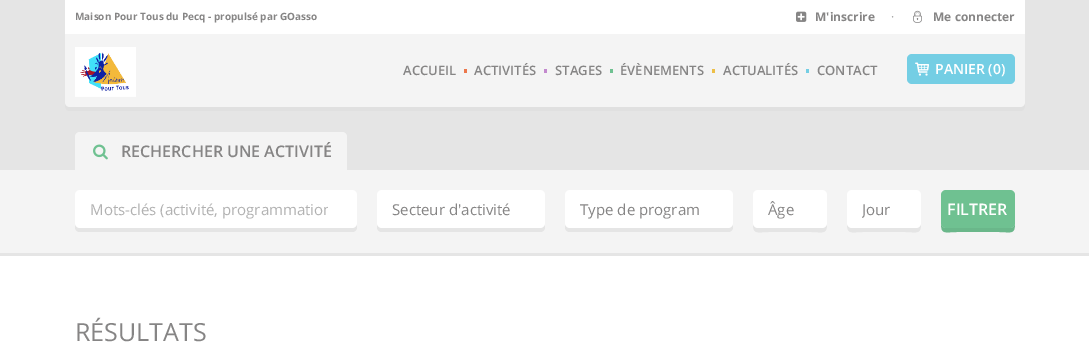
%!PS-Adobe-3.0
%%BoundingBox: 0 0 1089 357
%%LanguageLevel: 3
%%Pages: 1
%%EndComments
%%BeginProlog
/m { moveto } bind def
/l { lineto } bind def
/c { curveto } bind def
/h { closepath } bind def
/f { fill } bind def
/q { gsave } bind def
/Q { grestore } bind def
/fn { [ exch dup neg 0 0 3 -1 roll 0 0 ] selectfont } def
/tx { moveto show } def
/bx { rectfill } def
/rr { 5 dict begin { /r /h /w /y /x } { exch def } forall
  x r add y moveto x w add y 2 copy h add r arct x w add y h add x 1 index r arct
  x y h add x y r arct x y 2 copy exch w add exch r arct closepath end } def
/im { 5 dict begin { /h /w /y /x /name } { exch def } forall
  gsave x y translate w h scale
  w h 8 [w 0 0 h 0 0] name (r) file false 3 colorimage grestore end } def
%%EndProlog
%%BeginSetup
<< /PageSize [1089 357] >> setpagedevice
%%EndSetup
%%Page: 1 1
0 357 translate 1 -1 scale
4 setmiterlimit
1 setgray
0 0 1089 357 bx
0.898 setgray
0 0 1089 170 bx
1 setgray
65 0 960 34 bx
/OpenSans-Bold 10 fn
0.525 0.522 0.522 setrgbcolor
(Maison Pour Tous du Pecq - propulsé par GOasso) 75 20 tx
(image0.raw) 796 11 11 11 im
/OpenSans-Bold 12 fn
(M'inscrire) 815 21 tx
/OpenSans-Regular 12 fn
0.643 setgray
(·) 891 21 tx
(image1.raw) 913 10 9 13 im
/OpenSans-Bold 12 fn
0.525 0.522 0.522 setrgbcolor
(Me connecter) 933 21 tx
0.878 setgray
65 102 m 65 106 65 111 70 111 c 1020 111 l 1025 111 1025 106 1025 102 c 1025 105 1023 107 1020 107 c 70 107 l 67 107 65 105 65 102 c h f
0.957 setgray
65 34 m 1025 34 l 1025 102 l 1025 105 1023 107 1020 107 c 70 107 l 67 107 65 105 65 102 c h f
(image2.raw) 75 47 61 50 im
/OpenSans-SemiBold 13 fn
0.525 0.522 0.522 setrgbcolor
(ACCUEIL) 403 75 tx
0.925 0.467 0.294 setrgbcolor
464 69 3 4 bx
0.525 0.522 0.522 setrgbcolor
(ACTIVITÉS) 474 75 tx
0.765 0.537 0.808 setrgbcolor
544 69 3 4 bx
0.525 0.522 0.522 setrgbcolor
(STAGES) 555 75 tx
0.435 0.757 0.569 setrgbcolor
610 69 3 4 bx
0.525 0.522 0.522 setrgbcolor
(ÉVÈNEMENTS) 620 75 tx
0.929 0.749 0.278 setrgbcolor
712 69 3 4 bx
0.525 0.522 0.522 setrgbcolor
(ACTUALITÉS) 723 75 tx
0.455 0.808 0.894 setrgbcolor
806 69 3 4 bx
0.525 0.522 0.522 setrgbcolor
(CONTACT) 817 75 tx
0.455 0.808 0.894 setrgbcolor
907 54 108 30 5 rr f
(image3.raw) 915 62 14 14 im
/OpenSans-SemiBold 14 fn
1 setgray
(PANIER \(0\)) 935 74 tx
0.957 setgray
0 170 1089 83 bx
80 132 m 342 132 l 345 132 347 134 347 137 c 347 170 l 75 170 l 75 137 l 75 134 77 132 80 132 c h f
(image4.raw) 93 144 15 16 im
/OpenSans-SemiBold 16 fn
0.525 0.522 0.522 setrgbcolor
(RECHERCHER UNE ACTIVITÉ) 121 157 tx
0.898 setgray
75 223 m 75 227 l 75 230 77 232 80 232 c 352 232 l 355 232 357 230 357 227 c 357 223 l 357 226 355 228 352 228 c 80 228 l 77 228 75 226 75 223 c h f
1 setgray
75 190 282 38 5 rr f
q
90 199 238 20 rectclip
/OpenSans-Regular 15 fn
0.698 setgray
(Mots-clés \(activité, programmation) 90 215 tx
Q
0.898 setgray
377 223 m 377 227 l 377 230 379 232 382 232 c 540 232 l 543 232 545 230 545 227 c 545 223 l 545 226 543 228 540 228 c 382 228 l 379 228 377 226 377 223 c h f
1 setgray
377 190 168 38 5 rr f
/OpenSans-Regular 15 fn
0.525 0.522 0.522 setrgbcolor
(Secteur d'activité) 392 215 tx
0.898 setgray
565 223 m 565 227 l 565 230 567 232 570 232 c 728 232 l 731 232 733 230 733 227 c 733 223 l 733 226 731 228 728 228 c 570 228 l 567 228 565 226 565 223 c h f
1 setgray
565 190 168 38 5 rr f
0.525 0.522 0.522 setrgbcolor
(Type de program) 580 215 tx
0.898 setgray
753 223 m 753 235 757 232 769 232 c 811 232 l 823 232 827 235 827 223 c 827 226 825 228 822 228 c 758 228 l 755 228 753 226 753 223 c h f
1 setgray
753 190 74 38 5 rr f
0.525 0.522 0.522 setrgbcolor
(Âge) 768 215 tx
0.898 setgray
847 223 m 847 235 851 232 863 232 c 905 232 l 917 232 921 235 921 223 c 921 226 919 228 916 228 c 852 228 l 849 228 847 226 847 223 c h f
1 setgray
847 190 74 38 5 rr f
q
862 199 29 20 rectclip
0.525 0.522 0.522 setrgbcolor
(Jour) 862 215 tx
Q
0.416 0.718 0.541 setrgbcolor
941 223 m 941 235 945 232 957 232 c 999 232 l 1011 232 1015 235 1015 223 c 1015 226 1013 228 1010 228 c 946 228 l 943 228 941 226 941 223 c h f
0.435 0.757 0.569 setrgbcolor
941 190 74 38 5 rr f
/OpenSans-SemiBold 16 fn
1 setgray
(FILTRER) 947 215 tx
0.898 setgray
0 253 1089 3 bx
/OpenSans-Regular 25 fn
0.525 0.522 0.522 setrgbcolor
(RÉSULTATS) 75 341 tx
showpage
%%EOF
